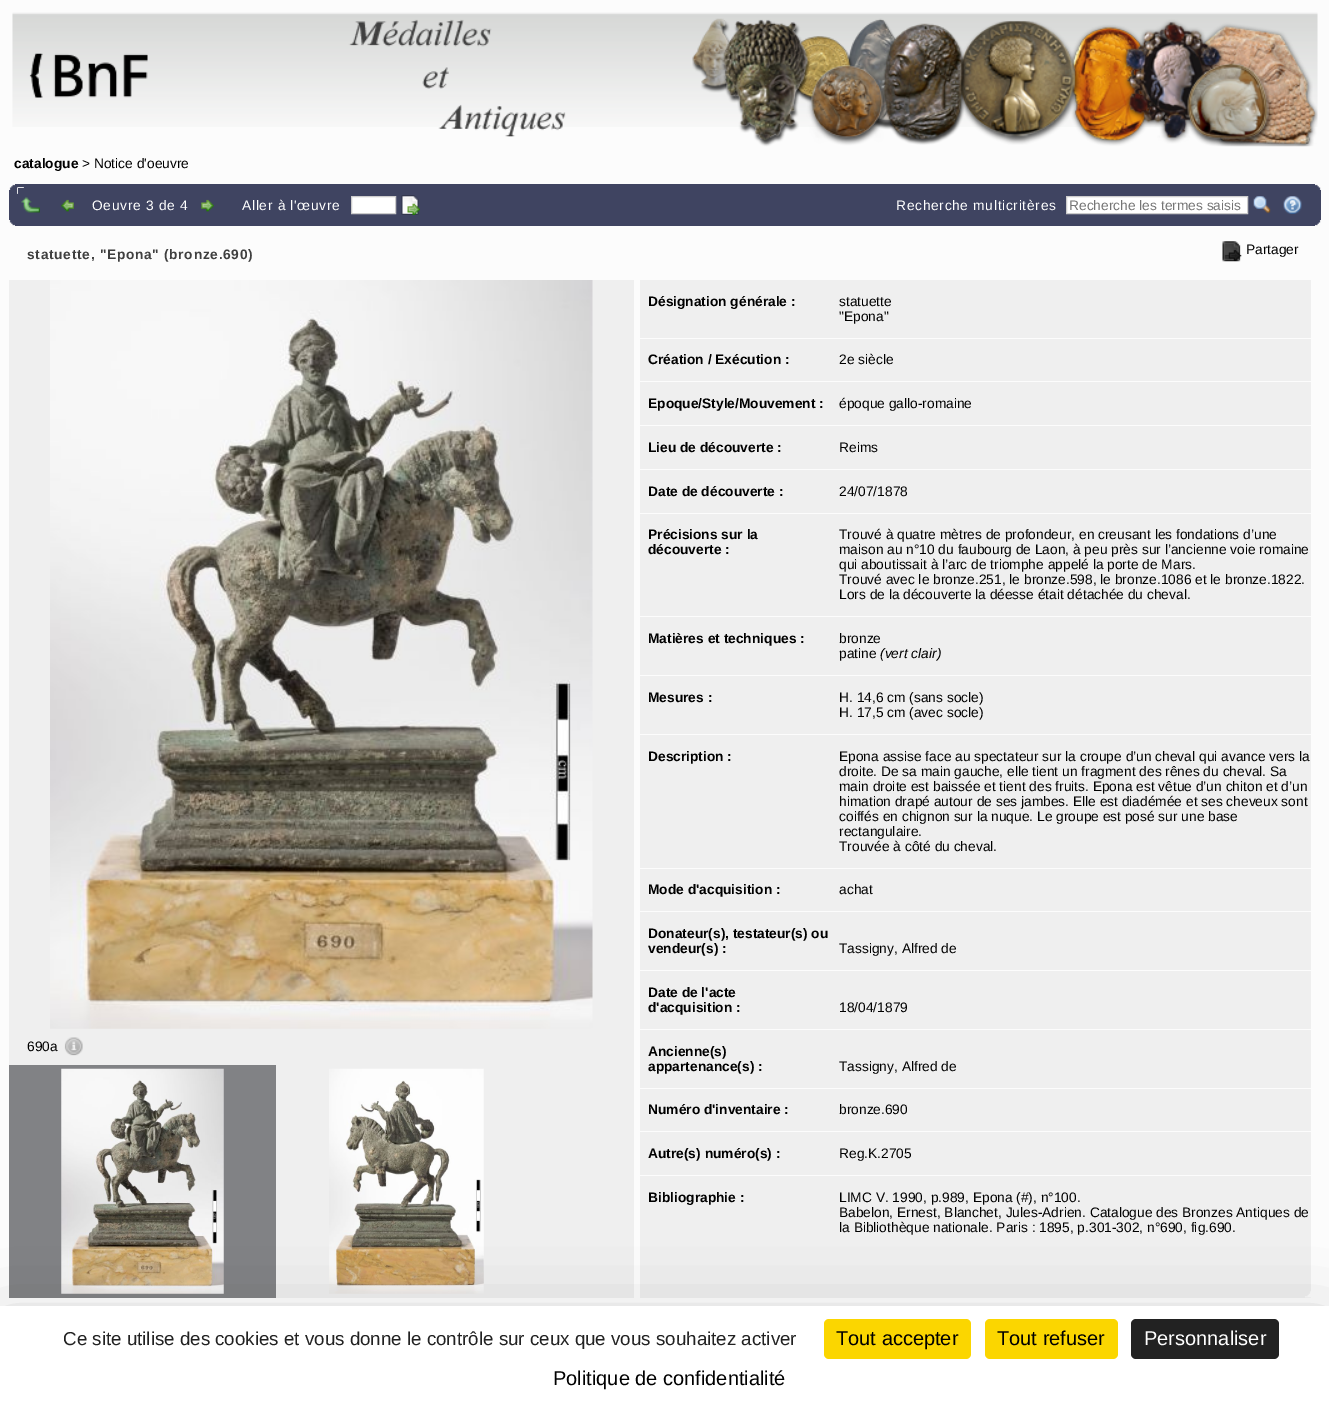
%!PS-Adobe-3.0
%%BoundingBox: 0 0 1329 1411
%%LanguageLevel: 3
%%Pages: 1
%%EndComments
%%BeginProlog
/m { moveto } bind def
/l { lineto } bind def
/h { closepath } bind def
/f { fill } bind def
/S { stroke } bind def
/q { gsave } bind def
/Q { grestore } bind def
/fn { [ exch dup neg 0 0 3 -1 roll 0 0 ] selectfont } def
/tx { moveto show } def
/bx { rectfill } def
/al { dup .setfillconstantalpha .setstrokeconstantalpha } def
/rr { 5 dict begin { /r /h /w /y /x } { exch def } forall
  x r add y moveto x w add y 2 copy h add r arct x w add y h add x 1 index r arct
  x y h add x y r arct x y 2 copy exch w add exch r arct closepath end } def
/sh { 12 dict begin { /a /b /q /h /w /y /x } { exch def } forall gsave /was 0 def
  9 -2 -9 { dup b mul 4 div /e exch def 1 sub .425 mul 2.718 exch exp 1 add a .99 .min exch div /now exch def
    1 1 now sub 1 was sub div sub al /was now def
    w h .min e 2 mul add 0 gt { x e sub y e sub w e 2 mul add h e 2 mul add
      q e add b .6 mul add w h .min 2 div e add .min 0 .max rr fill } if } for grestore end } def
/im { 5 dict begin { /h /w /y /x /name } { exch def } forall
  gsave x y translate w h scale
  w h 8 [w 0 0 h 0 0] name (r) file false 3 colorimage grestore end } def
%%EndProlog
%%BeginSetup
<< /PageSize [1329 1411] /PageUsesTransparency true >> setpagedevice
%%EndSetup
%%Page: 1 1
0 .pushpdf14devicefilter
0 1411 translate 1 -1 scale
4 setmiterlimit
0.988 setgray
0 0 1329 1411 bx
(image0.raw) 12 12 1306 115 im
(image1.raw) 29 19 537 118 im
(image2.raw) 692 18 626 129 im
/LiberationSans-Bold 13.75 fn
0 setgray
(catalogue) 14 168 tx
/LiberationSans-Regular 13.75 fn
(> Notice d'oeuvre) 82 168 tx
0.247 0.267 0.38 setrgbcolor
9 184 1312 42 bx
(image3.raw) 9 184 6 6 im
(image4.raw) 1315 184 6 6 im
(image5.raw) 9 220 6 6 im
(image6.raw) 17 187 7 7 im
(image7.raw) 17 187 7 7 im
(image8.raw) 17 187 7 7 im
18 188 6 6 bx
(image9.raw) 21 197 19 16 im
(image10.raw) 61 199 13 13 im
1 setgray
92 210 m 0.7 0 (Oeuvre 3 de 4) ashow
(image11.raw) 201 199 13 13 im
242 210 m 0.7 0 (Aller à l'œuvre) ashow
351.5 196.5 m 395.5 196.5 l 395.5 213.5 l 351.5 213.5 l h q f Q
0.8 setgray
S
(image12.raw) 401 195 19 20 im
(image13.raw) 1315 220 6 6 im
1 setgray
896 210 m 0.7 0 (Recherche multicritères) ashow
1066.5 196.5 m 1247.5 196.5 l 1247.5 213.5 l 1066.5 213.5 l h q f Q
0.8 setgray
S
0.459 setgray
(Recherche les termes saisis) 1069 210 tx
(image14.raw) 1253 196 18 18 im
(image15.raw) 1283 196 19 18 im
/LiberationSans-Bold 13.75 fn
0.247 setgray
27 259 m 0.7 0 (statuette, "Epona" \(bronze.690\)) ashow
(image16.raw) 1222 241 20 21 im
/LiberationSans-Regular 13.75 fn
0 setgray
(Partager) 1246 254 tx
0.937 setgray
9 280 625 1018 bx
(image17.raw) 50 280 543 749 im
0 setgray
(690a) 27 1051 tx
(image18.raw) 64 1037 19 19 im
0.506 0.51 0.522 setrgbcolor
9 1065 267 233 bx
(image19.raw) 61 1068 163 226 im
(image20.raw) 329 1068 155 226 im
0.937 setgray
640 280 671 1018 bx
(image21.raw) 1305 1291 6 7 im
/LiberationSans-Bold 13.75 fn
0 setgray
(Désignation générale :) 648 306 tx
/LiberationSans-Regular 13.75 fn
(statuette) 839 306 tx
("Epona") 839 321 tx
0.988 setgray
640 338 671 1 bx
/LiberationSans-Bold 13.75 fn
0 setgray
(Création / Exécution :) 648 364 tx
/LiberationSans-Regular 13.75 fn
(2e siècle) 839 364 tx
0.988 setgray
640 381 671 1 bx
/LiberationSans-Bold 13.75 fn
0 setgray
(Epoque/Style/Mouvement :) 648 408 tx
/LiberationSans-Regular 13.75 fn
(époque gallo-romaine) 839 408 tx
0.988 setgray
640 425 671 1 bx
/LiberationSans-Bold 13.75 fn
0 setgray
(Lieu de découverte :) 648 452 tx
/LiberationSans-Regular 13.75 fn
(Reims) 839 452 tx
0.988 setgray
640 469 671 1 bx
/LiberationSans-Bold 13.75 fn
0 setgray
(Date de découverte :) 648 496 tx
/LiberationSans-Regular 13.75 fn
(24/07/1878) 839 496 tx
0.988 setgray
640 513 671 1 bx
/LiberationSans-Bold 13.75 fn
0 setgray
(Précisions sur la) 648 539 tx
(découverte :) 648 554 tx
/LiberationSans-Regular 13.75 fn
(Trouvé à quatre mètres de profondeur, en creusant les fondations d’une) 839 539 tx
(maison au n°10 du faubourg de Laon, à peu près sur l’ancienne voie romaine) 839 554 tx
(qui aboutissait à l’arc de triomphe appelé la porte de Mars.) 839 569 tx
(Trouvé avec le bronze.251, le bronze.598, le bronze.1086 et le bronze.1822.) 839 584 tx
(Lors de la découverte la déesse était détachée du cheval.) 839 599 tx
0.988 setgray
640 616 671 1 bx
/LiberationSans-Bold 13.75 fn
0 setgray
(Matières et techniques :) 648 643 tx
/LiberationSans-Regular 13.75 fn
(bronze) 839 643 tx
(patine) 839 658 tx
/LiberationSans-Italic 13.75 fn
(\(vert clair\)) 880 658 tx
0.988 setgray
640 675 671 1 bx
/LiberationSans-Bold 13.75 fn
0 setgray
(Mesures :) 648 702 tx
/LiberationSans-Regular 13.75 fn
(H. 14,6 cm \(sans socle\)) 839 702 tx
(H. 17,5 cm \(avec socle\)) 839 717 tx
0.988 setgray
640 734 671 1 bx
/LiberationSans-Bold 13.75 fn
0 setgray
(Description :) 648 761 tx
/LiberationSans-Regular 13.75 fn
(Epona assise face au spectateur sur la croupe d’un cheval qui avance vers la) 839 761 tx
(droite. De sa main gauche, elle tient un fragment des rênes du cheval. Sa) 839 776 tx
(main droite est baissée et tient des fruits. Epona est vêtue d’un chiton et d’un) 839 791 tx
(himation drapé autour de ses jambes. Elle est diadémée et ses cheveux sont) 839 806 tx
(coiffés en chignon sur la nuque. Le groupe est posé sur une base) 839 821 tx
(rectangulaire.) 839 836 tx
(Trouvée à côté du cheval.) 839 851 tx
0.988 setgray
640 868 671 1 bx
/LiberationSans-Bold 13.75 fn
0 setgray
(Mode d'acquisition :) 648 894 tx
/LiberationSans-Regular 13.75 fn
(achat) 839 894 tx
0.988 setgray
640 911 671 1 bx
/LiberationSans-Bold 13.75 fn
0 setgray
(Donateur\(s\), testateur\(s\) ou) 648 938 tx
(vendeur\(s\) :) 648 953 tx
/LiberationSans-Regular 13.75 fn
(Tassigny, Alfred de) 839 953 tx
0.988 setgray
640 970 671 1 bx
/LiberationSans-Bold 13.75 fn
0 setgray
(Date de l'acte) 648 997 tx
(d'acquisition :) 648 1012 tx
/LiberationSans-Regular 13.75 fn
(18/04/1879) 839 1012 tx
0.988 setgray
640 1029 671 1 bx
/LiberationSans-Bold 13.75 fn
0 setgray
(Ancienne\(s\)) 648 1056 tx
(appartenance\(s\) :) 648 1071 tx
/LiberationSans-Regular 13.75 fn
(Tassigny, Alfred de) 839 1071 tx
0.988 setgray
640 1088 671 1 bx
/LiberationSans-Bold 13.75 fn
0 setgray
(Numéro d'inventaire :) 648 1114 tx
/LiberationSans-Regular 13.75 fn
(bronze.690) 839 1114 tx
0.988 setgray
640 1131 671 1 bx
/LiberationSans-Bold 13.75 fn
0 setgray
(Autre\(s\) numéro\(s\) :) 648 1158 tx
/LiberationSans-Regular 13.75 fn
(Reg.K.2705) 839 1158 tx
0.988 setgray
640 1175 671 1 bx
/LiberationSans-Bold 13.75 fn
0 setgray
(Bibliographie :) 648 1202 tx
/LiberationSans-Regular 13.75 fn
(LIMC V. 1990, p.989, Epona \(#\), n°100.) 839 1202 tx
(Babelon, Ernest, Blanchet, Jules-Adrien. Catalogue des Bronzes Antiques de) 839 1217 tx
(la Bibliothèque nationale. Paris : 1895, p.301-302, n°690, fig.690.) 839 1232 tx
0 1331 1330 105 0 37.5 0.25 sh
1 setgray
0 1306 1329 105 bx
/LiberationSans-Regular 18.75 fn
0.133 setgray
(Ce site utilise des cookies et vous donne le contrôle sur ceux que vous souhaitez activer) 63 1345 tx
0.984 0.839 0 setrgbcolor
824 1319 147 40 5 rr f
/LiberationSans-Regular 20 fn
0 setgray
(Tout accepter) 836 1345 tx
0.984 0.839 0 setrgbcolor
985 1319 133 40 5 rr f
0 setgray
(Tout refuser) 997 1345 tx
0.133 setgray
1131 1319 148 40 5 rr f
1 setgray
(Personnaliser) 1144 1345 tx
0 setgray
(Politique de confidentialité) 553 1385 tx
.poppdf14devicefilter showpage
%%EOF
